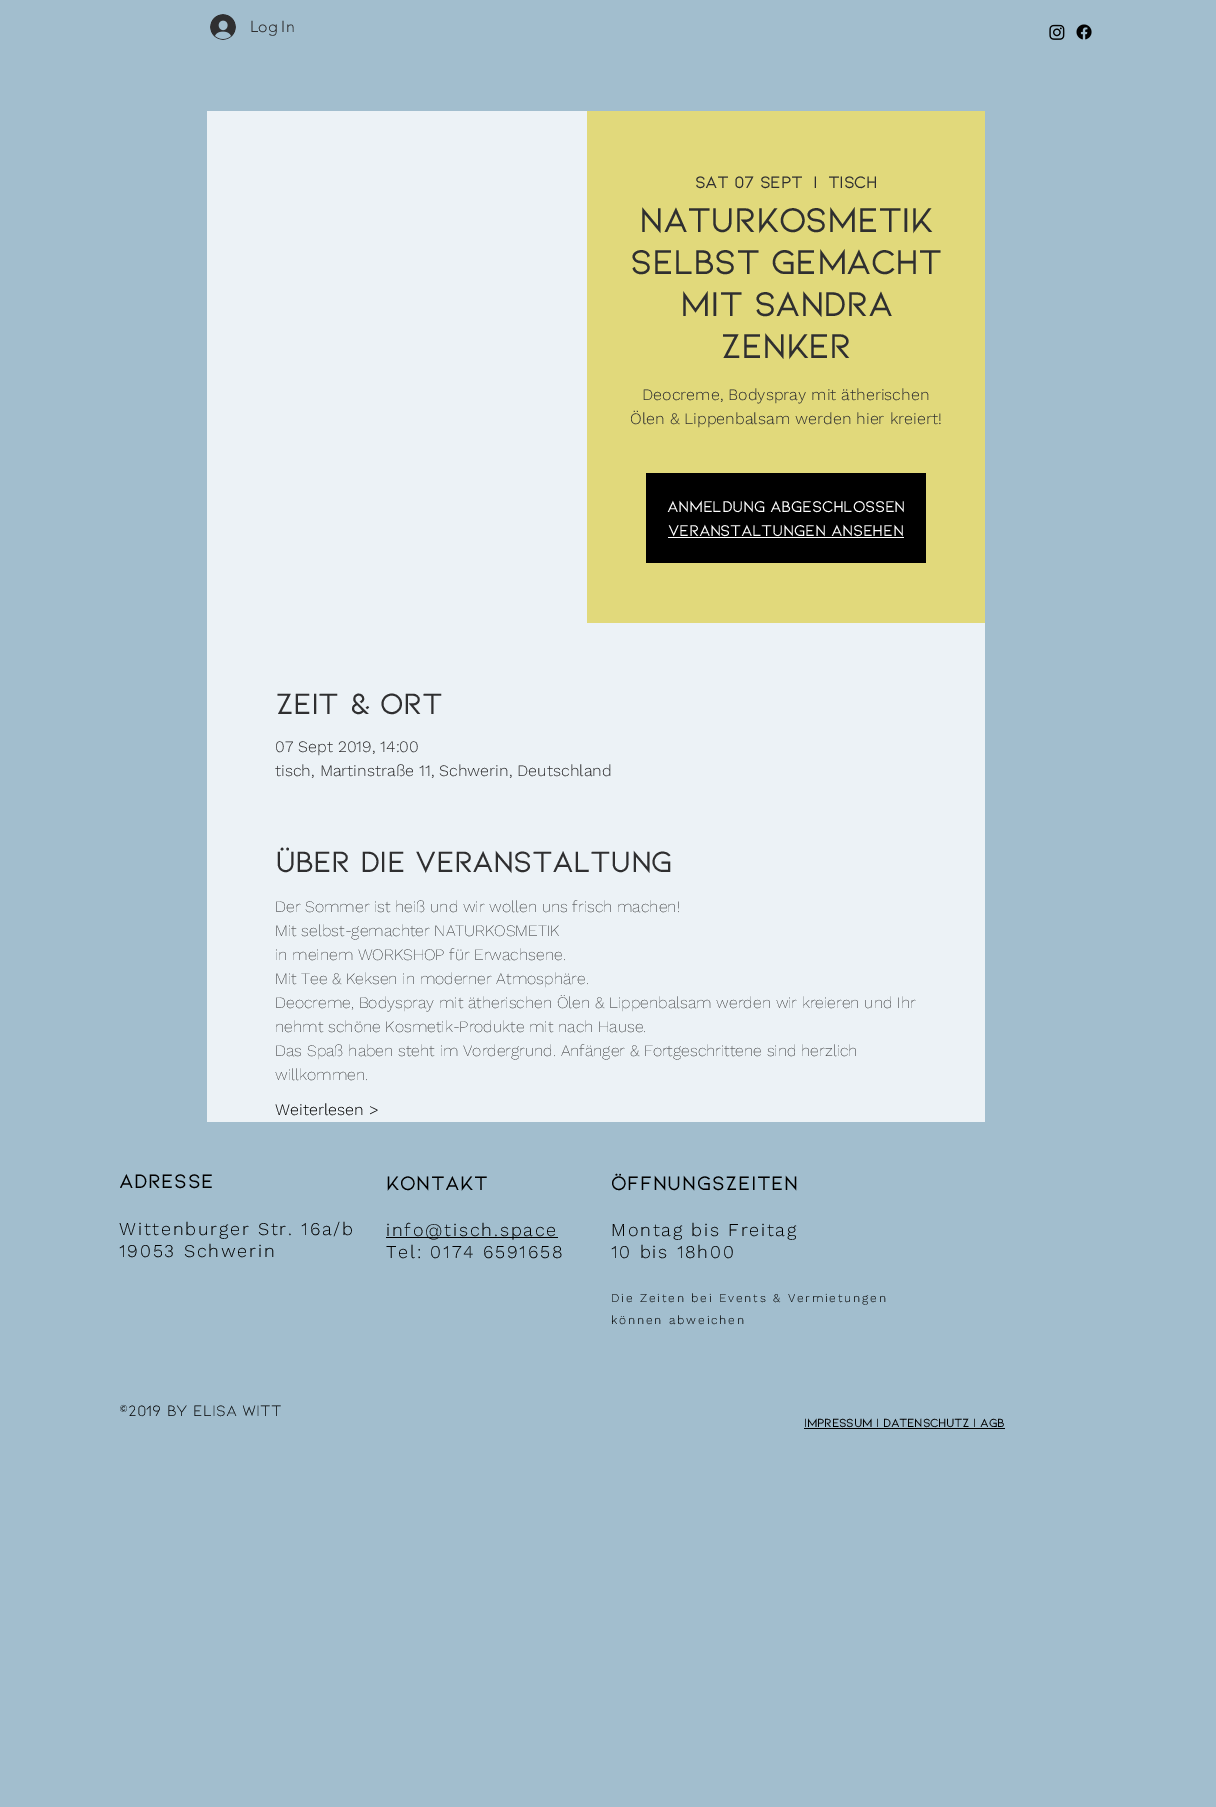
%!PS-Adobe-3.0
%%BoundingBox: 0 0 1216 1807
%%LanguageLevel: 3
%%Pages: 1
%%EndComments
%%BeginProlog
/m { moveto } bind def
/fn { [ exch dup neg 0 0 3 -1 roll 0 0 ] selectfont } def
/tx { moveto show } def
/bx { rectfill } def
/im { 5 dict begin { /h /w /y /x /name } { exch def } forall
  gsave x y translate w h scale
  w h 8 [w 0 0 h 0 0] name (r) file false 3 colorimage grestore end } def
%%EndProlog
%%BeginSetup
<< /PageSize [1216 1807] >> setpagedevice
%%EndSetup
%%Page: 1 1
0 1807 translate 1 -1 scale
4 setmiterlimit
0.635 0.745 0.808 setrgbcolor
0 0 1216 1807 bx
(image0.raw) 210 14 26 26 im
/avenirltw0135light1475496-Light 16 fn
0.184 0.184 0.188 setrgbcolor
(Log In) 250 32 tx
(image1.raw) 1049 24 16 16 im
(image2.raw) 1076 24 16 16 im
0.925 0.949 0.965 setrgbcolor
207 111 778 1011 bx
0.882 0.851 0.482 setrgbcolor
587 111 398 512 bx
/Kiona-Bold 17 fn
0.184 0.184 0.188 setrgbcolor
(Sat 07 Sept) 695 188 tx
(|) 813 188 tx
(tisch) 828 188 tx
/Kiona-Bold 35 fn
(Naturkosmetik) 639 232 tx
(Selbst gemacht) 630 274 tx
(mit Sandra) 680 316 tx
(Zenker) 720 358 tx
/WorkSans-Light 16 fn
(Deocreme, Bodyspray mit ätherischen) 642 400 tx
(Ölen & Lippenbalsam werden hier kreiert!) 630 424 tx
0 setgray
646 473 280 90 bx
/Kiona-Bold 16 fn
1 setgray
(Anmeldung abgeschlossen) 667 512 tx
(Veranstaltungen ansehen) 668 536 tx
668 537 236 1 bx
/Kiona-Bold 30 fn
0.184 0.184 0.188 setrgbcolor
(Zeit & Ort) 275 714 tx
/WorkSans-Light 16 fn
(07 Sept 2019, 14:00) 275 752 tx
(tisch, Martinstraße 11, Schwerin, Deutschland) 275 776 tx
/Kiona-Bold 30 fn
(Über die Veranstaltung) 275 872 tx
/WorkSans-ExtraLight 16 fn
(Der Sommer ist heiß und wir wollen uns frisch machen!) 275 912 tx
(Mit selbst-gemachter NATURKOSMETIK) 275 936 tx
(in meinem WORKSHOP für Erwachsene.) 275 960 tx
(Mit Tee & Keksen in moderner Atmosphäre.) 275 984 tx
(Deocreme, Bodyspray mit ätherischen Ölen & Lippenbalsam werden wir kreieren und Ihr) 275 1008 tx
(nehmt schöne Kosmetik-Produkte mit nach Hause.) 275 1032 tx
(Das Spaß haben steht im Vordergrund. Anfänger & Fortgeschrittene sind herzlich) 275 1056 tx
(willkommen.) 275 1080 tx
/WorkSans-Light 16 fn
0 setgray
(Weiterlesen >) 275 1115 tx
/Kiona-Bold 20 fn
119 1188 m 1 0 (ADRESSE) ashow
/WorkSans-Light 18 fn
119 1235 m 1.8 0 (Wittenburger Str. 16a/b) ashow
119 1257 m 1.8 0 (19053 Schwerin) ashow
/Kiona-Bold 20 fn
386 1190 m 1 0 (KONTAKT) ashow
386 1237 172 1 bx
/WorkSans-Light 18 fn
386 1236 m 1.8 0 (info@tisch.space) ashow
386 1258 m 1.8 0 (Tel: 0174 6591658) ashow
/Kiona-Bold 20 fn
611 1190 m 1 0 (Öffnungszeiten) ashow
/WorkSans-Light 18 fn
611 1236 m 1.8 0 (Montag bis Freitag) ashow
611 1258 m 1.8 0 (10 bis 18h00) ashow
/WorkSans-Light 12 fn
611 1302 m 1.8 0 (Die Zeiten bei Events & Vermietungen) ashow
611 1324 m 1.8 0 (können abweichen) ashow
/Kiona-Regular 16 fn
(©2019 by Elisa Witt) 119 1416 tx
/Kiona-Bold 12 fn
(Impressum | Datenschutz | AGB) 804 1427 tx
804 1428 201 1 bx
showpage
%%EOF
